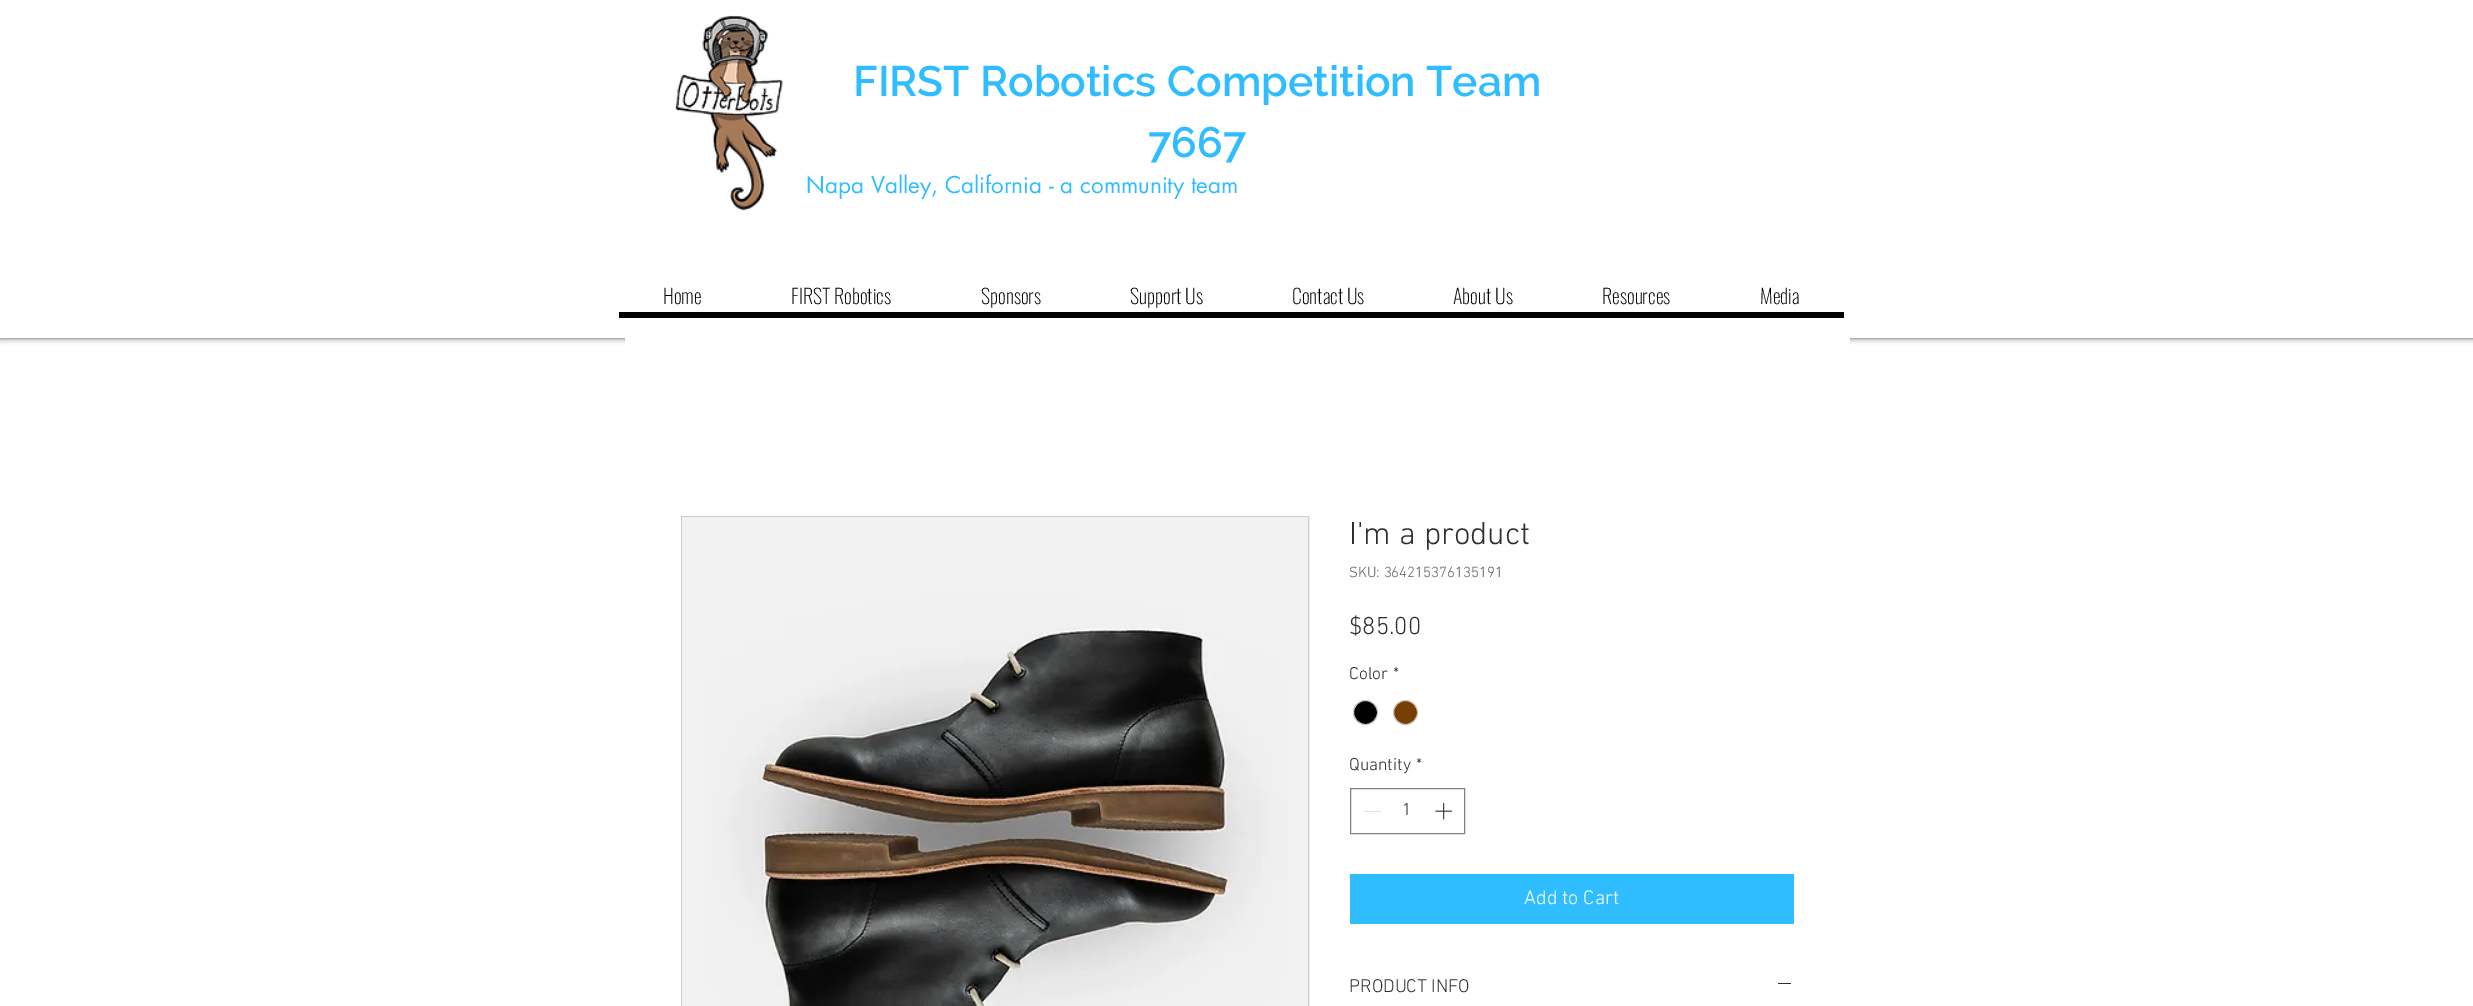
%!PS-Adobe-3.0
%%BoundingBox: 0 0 2473 1006
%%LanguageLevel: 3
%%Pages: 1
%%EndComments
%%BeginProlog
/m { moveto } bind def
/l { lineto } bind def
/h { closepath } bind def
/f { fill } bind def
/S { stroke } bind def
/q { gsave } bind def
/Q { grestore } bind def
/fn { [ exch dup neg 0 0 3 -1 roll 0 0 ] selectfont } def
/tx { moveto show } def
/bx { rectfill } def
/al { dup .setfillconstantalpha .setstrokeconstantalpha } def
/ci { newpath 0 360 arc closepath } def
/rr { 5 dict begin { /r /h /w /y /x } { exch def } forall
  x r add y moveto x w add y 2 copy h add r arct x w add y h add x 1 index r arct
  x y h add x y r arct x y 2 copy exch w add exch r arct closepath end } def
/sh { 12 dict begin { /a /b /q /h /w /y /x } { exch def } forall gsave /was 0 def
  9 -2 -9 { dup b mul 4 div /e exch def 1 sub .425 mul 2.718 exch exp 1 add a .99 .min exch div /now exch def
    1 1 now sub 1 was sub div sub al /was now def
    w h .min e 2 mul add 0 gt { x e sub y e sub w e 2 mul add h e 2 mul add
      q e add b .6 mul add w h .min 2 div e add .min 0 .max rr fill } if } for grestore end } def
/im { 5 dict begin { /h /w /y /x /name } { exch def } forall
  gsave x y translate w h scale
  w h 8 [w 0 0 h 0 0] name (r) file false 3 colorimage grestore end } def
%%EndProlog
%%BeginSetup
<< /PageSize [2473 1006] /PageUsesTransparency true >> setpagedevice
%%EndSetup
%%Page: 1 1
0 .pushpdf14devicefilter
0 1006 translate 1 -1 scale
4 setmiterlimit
1 setgray
0 0 2473 1006 bx
0 setgray
0 0 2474 338 0 3 0.7 sh
1 setgray
0 0 2473 338 bx
(image0.raw) 675 15 108 196 im
/Raleway-SemiBold 42.5 fn
0.188 0.741 1 setrgbcolor
(FIRST Robotics Competition Team) 853 96 tx
(7667) 1148 157 tx
/futura-Regular 22.5 fn
(Napa Valley, California - a community team) 806 193 tx
0 setgray
619 312 m 619 318 l 1844 318 l 1844 284 l 1844 312 l h f
/Oswald-ExtraLight 20 fn
(Home) 663 304 tx
(FIRST Robotics) 791 304 tx
(Sponsors) 981 304 tx
(Support Us) 1130 304 tx
(Contact Us) 1292 304 tx
(About Us) 1453 304 tx
(Resources) 1602 304 tx
(Media) 1760 304 tx
1 setgray
625 338 1225 7 bx
0.8 setgray
681.5 516.5 627 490 rectstroke
(image1.raw) 683 517 625 489 im
/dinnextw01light-Light 32.5 fn
0.184 0.18 0.18 setrgbcolor
(I'm a product) 1349 544 tx
/dinnextw01light-Light 15 fn
0.376 0.369 0.369 setrgbcolor
(SKU: 364215376135191) 1349 577 tx
/dinnextw01light-Light 25 fn
0.184 0.18 0.18 setrgbcolor
($85.00) 1349 634 tx
/dinnextw01light-Light 17.5 fn
(Color) 1349 679 tx
(*) 1393 679 tx
0 setgray
1365.5 712.5 12 ci q f Q
0.788 setgray
S
0.471 0.247 0.016 setrgbcolor
1405.5 712.5 12 ci q f Q
0.788 setgray
S
0.184 0.18 0.18 setrgbcolor
(Quantity) 1349 770 tx
(*) 1416 770 tx
0.51 setgray
1350.5 788.5 114 45 rectstroke
0.89 setgray
1364 811 17 1 bx
0.184 0.18 0.18 setrgbcolor
(1) 1402 815 tx
(image2.raw) 1435 802 17 18 im
0.188 0.741 1 setrgbcolor
1350 874 444 50 bx
/dinnextw01light-Light 20 fn
1 setgray
(Add to Cart) 1524 904 tx
/dinnextw01light-Light 18.75 fn
0.184 0.18 0.18 setrgbcolor
(PRODUCT INFO) 1349 992 tx
1778 983 13 1 bx
.poppdf14devicefilter showpage
%%EOF
